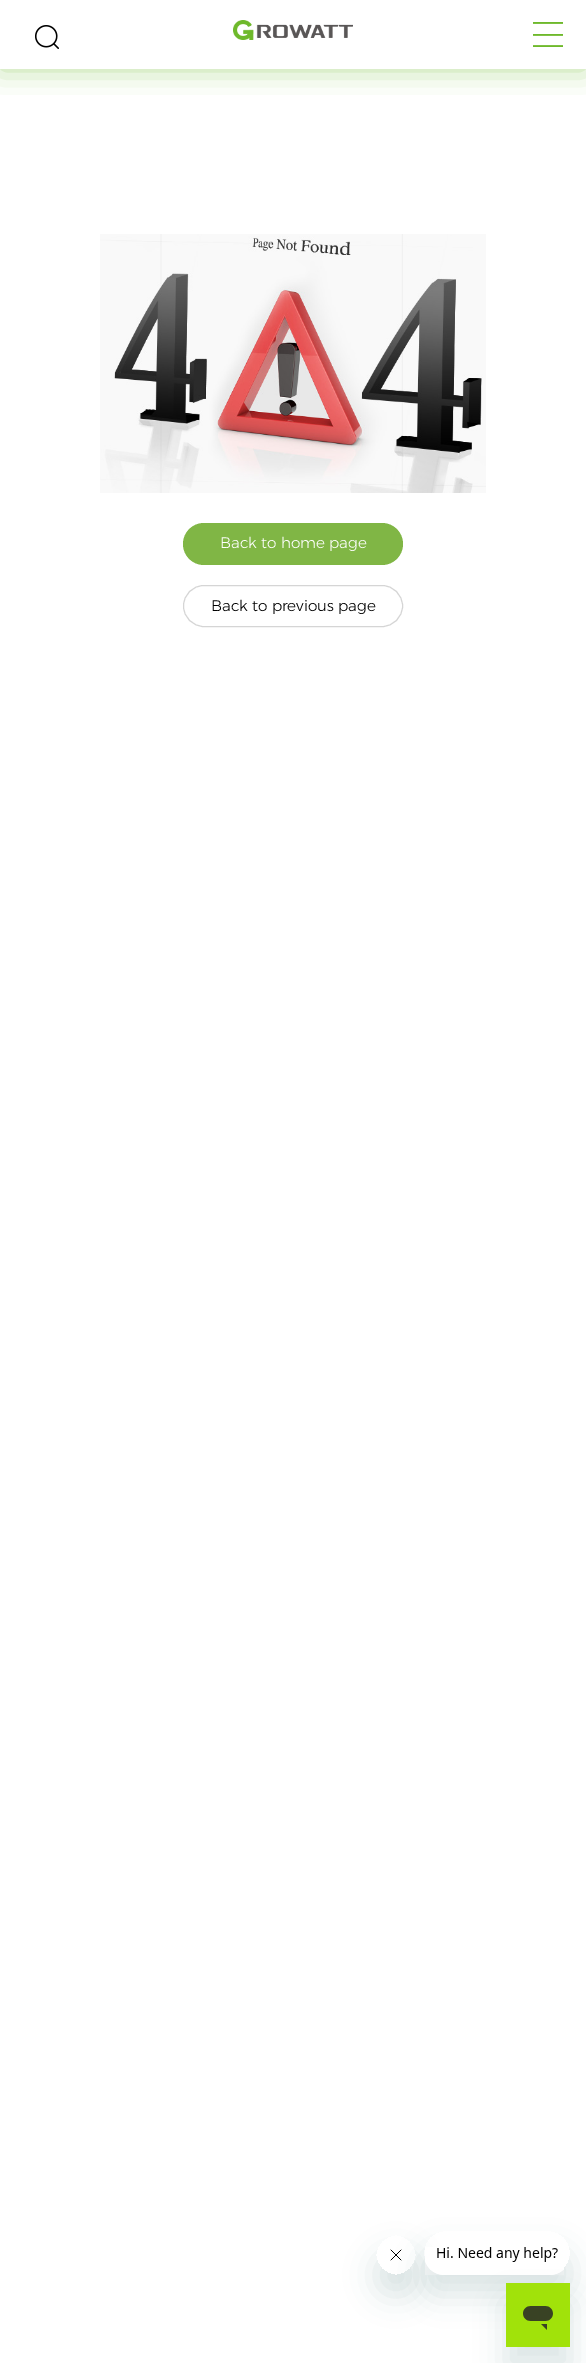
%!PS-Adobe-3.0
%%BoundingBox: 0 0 586 2363
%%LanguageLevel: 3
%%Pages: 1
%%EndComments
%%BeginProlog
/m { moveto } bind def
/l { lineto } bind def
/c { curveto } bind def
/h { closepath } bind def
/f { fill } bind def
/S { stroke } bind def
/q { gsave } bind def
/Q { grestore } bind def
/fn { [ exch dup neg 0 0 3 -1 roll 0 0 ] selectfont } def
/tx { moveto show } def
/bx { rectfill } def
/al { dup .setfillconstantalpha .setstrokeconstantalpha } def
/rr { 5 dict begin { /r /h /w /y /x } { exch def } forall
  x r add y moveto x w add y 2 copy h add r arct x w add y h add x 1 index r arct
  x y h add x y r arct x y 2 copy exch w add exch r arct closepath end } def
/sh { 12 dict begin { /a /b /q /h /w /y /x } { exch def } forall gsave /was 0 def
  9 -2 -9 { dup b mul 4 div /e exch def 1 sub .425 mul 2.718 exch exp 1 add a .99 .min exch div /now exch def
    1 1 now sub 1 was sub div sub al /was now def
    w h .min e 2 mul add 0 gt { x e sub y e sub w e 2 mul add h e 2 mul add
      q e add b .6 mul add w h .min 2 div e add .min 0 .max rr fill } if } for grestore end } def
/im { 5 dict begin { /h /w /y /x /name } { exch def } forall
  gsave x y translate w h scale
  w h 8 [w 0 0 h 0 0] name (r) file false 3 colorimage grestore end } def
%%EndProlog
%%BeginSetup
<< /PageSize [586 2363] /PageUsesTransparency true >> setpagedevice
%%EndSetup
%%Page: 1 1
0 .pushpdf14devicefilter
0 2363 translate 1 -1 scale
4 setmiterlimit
1 setgray
0 0 586 2363 bx
q
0 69 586 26 rectclip
0.431 0.725 0.169 setrgbcolor
0 0 586 69 0 15 0.5 sh
Q
(image0.raw) 35 25 24 24 im
(image1.raw) 233 20 120 20 im
(image2.raw) 533 22 30 25 im
(image3.raw) 100 234 386 259 im
0.502 0.714 0.271 setrgbcolor
183 523 220 42 21 rr f
/Montserrat-Light 15.25 fn
1 setgray
(Back to home page) 220 548 tx
0.835 setgray
183.5 585.5 219 41 20.5 rr S
0 setgray
(Back to previous page) 211 611 tx
q
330 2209 m 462 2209 l 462 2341 l 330 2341 l h 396 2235 m 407 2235 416 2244 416 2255 c 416 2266 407 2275 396 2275 c 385 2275 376 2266 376 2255 c 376 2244 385 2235 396 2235 c h eoclip newpath
0.09 0.286 0.302 setrgbcolor
376 2255 40 40 20 15 0.15 sh
Q
(image5.raw) 390 2249 12 12 im
q
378 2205 m 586 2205 l 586 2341 l 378 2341 l h 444 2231 m 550 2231 l 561 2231 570 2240 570 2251 c 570 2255 l 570 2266 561 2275 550 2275 c 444 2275 l 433 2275 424 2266 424 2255 c 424 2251 l 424 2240 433 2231 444 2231 c h eoclip newpath
0.09 0.286 0.302 setrgbcolor
424 2251 146 44 20 15 0.15 sh
Q
(image4.raw) 425 2247 139 28 im
0.09 0.286 0.302 setrgbcolor
506 2303 64 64 0 15 0.15 sh
(image6.raw) 506 2283 64 64 im
.poppdf14devicefilter showpage
%%EOF
